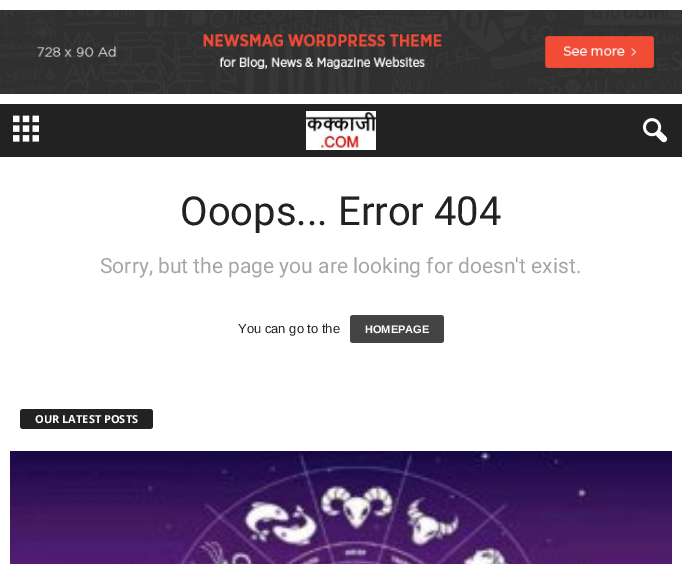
%!PS-Adobe-3.0
%%BoundingBox: 0 0 682 564
%%LanguageLevel: 3
%%Pages: 1
%%EndComments
%%BeginProlog
/f { fill } bind def
/fn { [ exch dup neg 0 0 3 -1 roll 0 0 ] selectfont } def
/tx { moveto show } def
/bx { rectfill } def
/rr { 5 dict begin { /r /h /w /y /x } { exch def } forall
  x r add y moveto x w add y 2 copy h add r arct x w add y h add x 1 index r arct
  x y h add x y r arct x y 2 copy exch w add exch r arct closepath end } def
/im { 5 dict begin { /h /w /y /x /name } { exch def } forall
  gsave x y translate w h scale
  w h 8 [w 0 0 h 0 0] name (r) file false 3 colorimage grestore end } def
%%EndProlog
%%BeginSetup
<< /PageSize [682 564] >> setpagedevice
%%EndSetup
%%Page: 1 1
0 564 translate 1 -1 scale
4 setmiterlimit
1 setgray
0 0 682 564 bx
(image0.raw) 0 10 682 84 im
0.133 setgray
0 104 682 53 bx
(image1.raw) 13 115 26 27 im
(image2.raw) 306 111 70 39 im
(image3.raw) 643 118 25 25 im
/Roboto-Regular 40 fn
(Ooops... Error 404) 180 225 tx
/Roboto-Regular 21 fn
0.651 setgray
(Sorry, but the page you are looking for doesn't exist.) 100 273 tx
/LiberationSans-Regular 13 fn
0.133 setgray
(You can go to the) 238 333 tx
0.267 setgray
350 315 94 28 3 rr f
/LiberationSans-Bold 11 fn
1 setgray
(HOMEPAGE) 365 333 tx
0.133 setgray
20 409 133 20 3 rr f
/OpenSans-Bold 11 fn
1 setgray
(OUR LATEST POSTS) 35 423 tx
(image4.raw) 10 451 662 113 im
showpage
%%EOF
